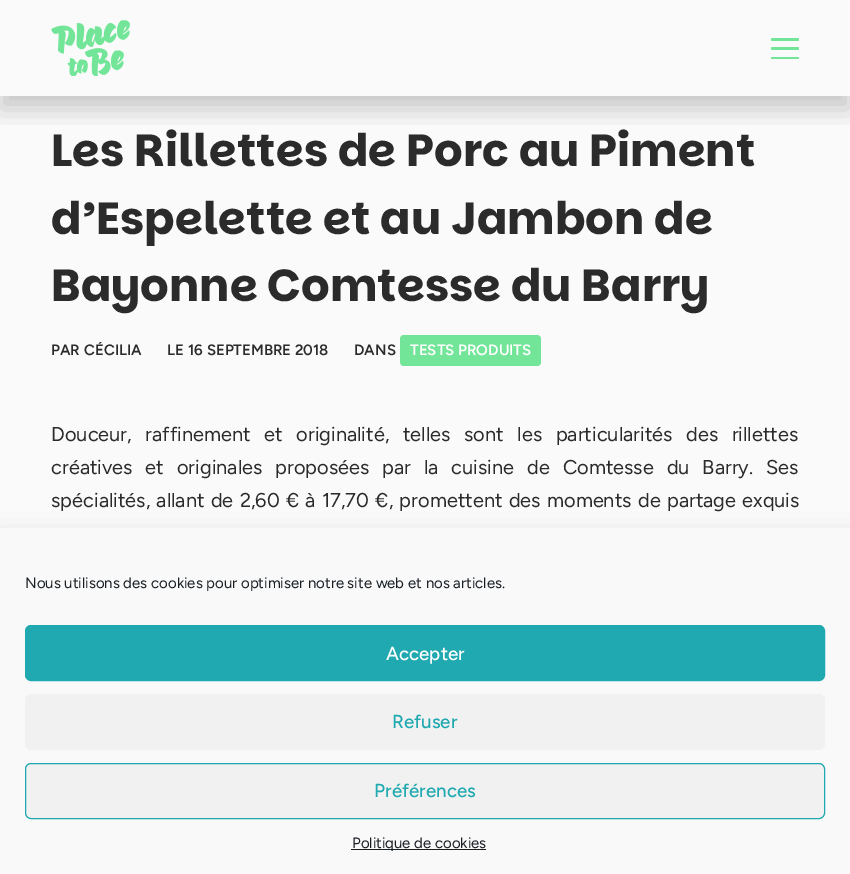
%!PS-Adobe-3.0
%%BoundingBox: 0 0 850 874
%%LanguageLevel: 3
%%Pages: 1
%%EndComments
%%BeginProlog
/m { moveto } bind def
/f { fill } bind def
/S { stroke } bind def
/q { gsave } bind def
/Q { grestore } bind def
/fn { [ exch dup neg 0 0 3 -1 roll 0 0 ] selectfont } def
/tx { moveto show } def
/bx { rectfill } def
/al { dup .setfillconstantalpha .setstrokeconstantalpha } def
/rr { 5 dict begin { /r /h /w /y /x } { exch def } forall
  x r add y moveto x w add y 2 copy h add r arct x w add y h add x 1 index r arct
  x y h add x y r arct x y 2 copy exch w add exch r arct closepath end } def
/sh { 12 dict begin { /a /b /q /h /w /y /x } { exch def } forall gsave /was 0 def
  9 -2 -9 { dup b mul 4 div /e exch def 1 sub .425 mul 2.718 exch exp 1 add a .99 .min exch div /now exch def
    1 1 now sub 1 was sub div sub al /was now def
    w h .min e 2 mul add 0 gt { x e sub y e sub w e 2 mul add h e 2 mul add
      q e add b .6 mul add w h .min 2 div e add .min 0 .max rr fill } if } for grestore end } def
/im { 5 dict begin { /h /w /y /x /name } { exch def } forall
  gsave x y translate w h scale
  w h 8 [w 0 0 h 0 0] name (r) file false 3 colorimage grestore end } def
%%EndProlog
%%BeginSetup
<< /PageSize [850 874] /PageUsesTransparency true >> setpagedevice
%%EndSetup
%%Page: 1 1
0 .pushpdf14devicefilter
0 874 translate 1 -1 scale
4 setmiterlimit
0.98 setgray
0 0 850 874 bx
q
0 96 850 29 rectclip
0 setgray
0 13 850 96 0 12.5 0.2 sh
Q
(image0.raw) 51 20 79 56 im
0.451 0.898 0.6 setrgbcolor
771 38 28 3 1.5 rr f
771 47 28 3 1.5 rr f
771 57 28 2 1 rr f
/Parkinsans-Bold 45 fn
0.169 setgray
(Les Rillettes de Porc au Piment) 51 166 tx
(d’Espelette et au Jambon de) 51 234 tx
(Bayonne Comtesse du Barry) 51 301 tx
/Figtree-SemiBold 15 fn
(PAR) 51 355 tx
(CÉCILIA) 84 355 tx
(LE) 167 355 tx
(16 SEPTEMBRE 2018) 188 355 tx
(DANS) 354 355 tx
0.451 0.898 0.6 setrgbcolor
400 335 141 31 4 rr f
1 setgray
(TESTS PRODUITS) 410 355 tx
/Figtree-Regular 20 fn
0.169 setgray
51 441 m 8.75 0 32 (Douceur, raffinement et originalité, telles sont les particularités des rillettes) widthshow
51 474 m 8 0 32 (créatives et originales proposées par la cuisine de Comtesse du Barry. Ses) widthshow
51 507 m 1.4 0 32 (spécialités, allant de 2,60 € à 17,70 €, promettent des moments de partage exquis) widthshow
0 setgray
0 540 850 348 0 12.5 0.19 sh
0.976 setgray
0 528 850 346 bx
/Figtree-Regular 15 fn
0.098 0.118 0.137 setrgbcolor
(Nous utilisons des cookies pour optimiser notre site web et nos articles.) 25 588 tx
0.125 0.663 0.69 setrgbcolor
25.5 625.5 799 55 5.5 rr q f Q
S
/Figtree-Medium 18.75 fn
1 setgray
(Accepter) 386 660 tx
0.945 setgray
25 694 800 56 6 rr f
0.125 0.663 0.69 setrgbcolor
(Refuser) 392 728 tx
0.945 setgray
25.5 763.5 799 55 5.5 rr q f Q
0.125 0.663 0.69 setrgbcolor
S
(Préférences) 374 797 tx
0.098 0.118 0.137 setrgbcolor
351 849 135 1 bx
/Figtree-Regular 15 fn
(Politique de cookies) 352 848 tx
.poppdf14devicefilter showpage
%%EOF
